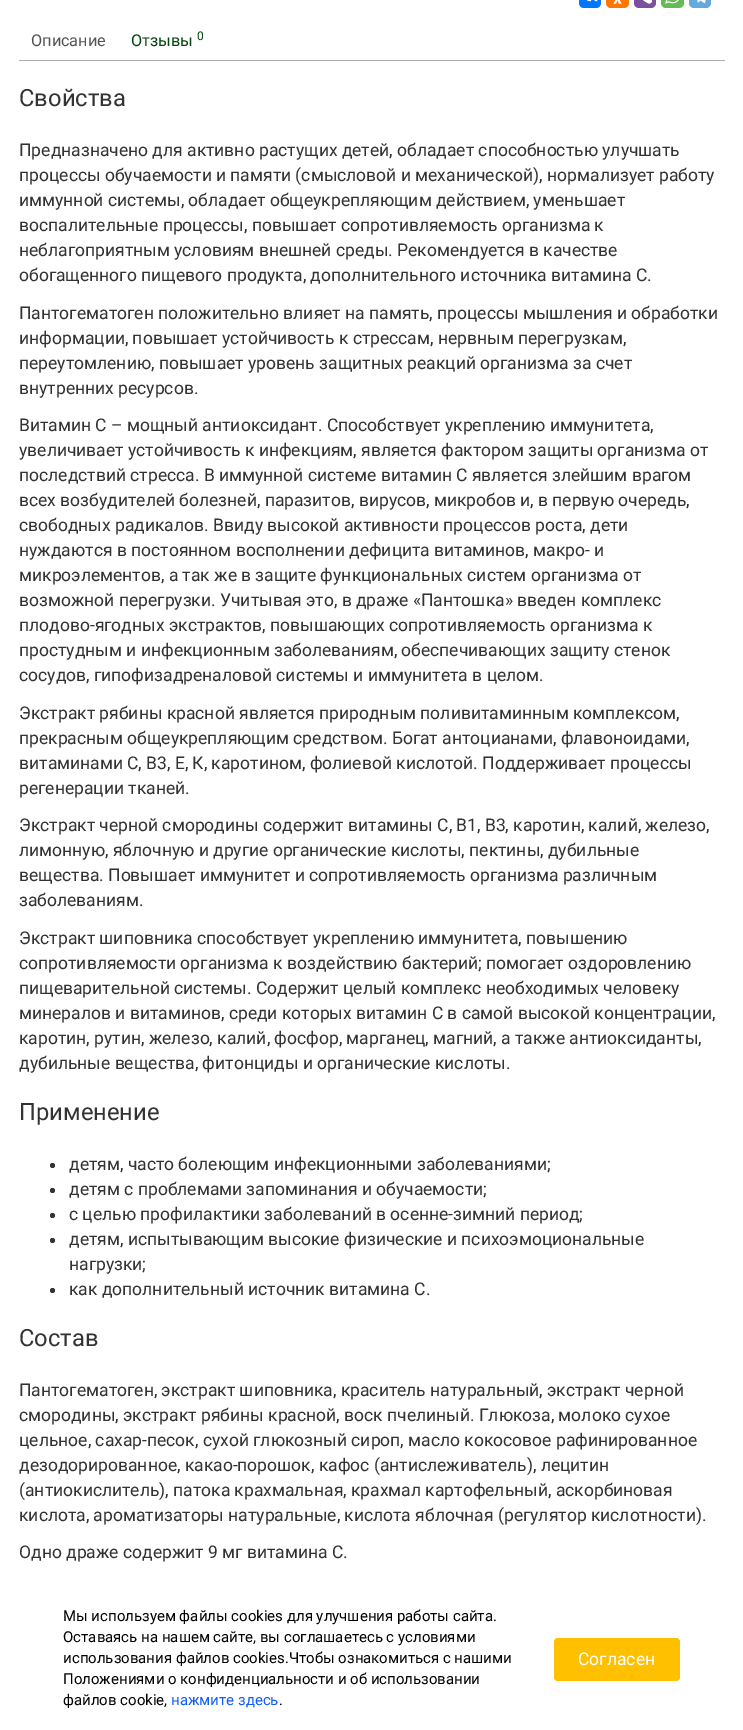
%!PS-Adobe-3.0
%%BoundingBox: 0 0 743 1730
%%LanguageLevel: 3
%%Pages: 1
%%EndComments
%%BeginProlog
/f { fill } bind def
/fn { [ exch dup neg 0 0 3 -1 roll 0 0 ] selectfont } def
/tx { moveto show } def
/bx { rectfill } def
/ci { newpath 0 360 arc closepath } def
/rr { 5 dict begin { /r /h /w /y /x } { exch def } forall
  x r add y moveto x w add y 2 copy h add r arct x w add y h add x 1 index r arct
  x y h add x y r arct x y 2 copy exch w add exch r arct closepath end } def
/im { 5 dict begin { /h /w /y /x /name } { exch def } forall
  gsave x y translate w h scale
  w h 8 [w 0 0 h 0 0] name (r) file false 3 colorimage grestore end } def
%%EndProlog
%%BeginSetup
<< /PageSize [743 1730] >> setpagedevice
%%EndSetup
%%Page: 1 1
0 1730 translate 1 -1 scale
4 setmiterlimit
1 setgray
0 0 743 1730 bx
0 0.467 1 setrgbcolor
579 -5 22 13 5 rr f
(image0.raw) 586 0 12 2 im
1 0.467 0 setrgbcolor
606 -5 23 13 5 rr f
(image1.raw) 613 0 9 4 im
0.482 0.318 0.616 setrgbcolor
634 -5 22 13 5 rr f
(image2.raw) 643 0 10 4 im
0.396 0.737 0.329 setrgbcolor
661 -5 23 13 5 rr f
(image3.raw) 665 0 14 4 im
0.392 0.663 0.863 setrgbcolor
689 -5 22 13 5 rr f
(image4.raw) 697 0 9 4 im
0.678 setgray
19 60 706 1 bx
/Roboto-Regular 16.25 fn
0.333 setgray
(Описание) 31 46 tx
0.027 0.271 0.063 setrgbcolor
(Отзывы) 131 46 tx
/Roboto-Regular 12 fn
(0) 197 40 tx
/Roboto-Regular 23.75 fn
0.2 setgray
(Свойства) 19 106 tx
/Roboto-Regular 17.5 fn
(Предназначено для активно растущих детей, обладает способностью улучшать) 19 156 tx
(процессы обучаемости и памяти \(смысловой и механической\), нормализует работу) 19 181 tx
(иммунной системы, обладает общеукрепляющим действием, уменьшает) 19 206 tx
(воспалительные процессы, повышает сопротивляемость организма к) 19 231 tx
(неблагоприятным условиям внешней среды. Рекомендуется в качестве) 19 256 tx
(обогащенного пищевого продукта, дополнительного источника витамина С.) 19 281 tx
(Пантогематоген положительно влияет на память, процессы мышления и обработки) 19 319 tx
(информации, повышает устойчивость к стрессам, нервным перегрузкам,) 19 344 tx
(переутомлению, повышает уровень защитных реакций организма за счет) 19 369 tx
(внутренних ресурсов.) 19 394 tx
(Витамин С – мощный антиоксидант. Способствует укреплению иммунитета,) 19 431 tx
(увеличивает устойчивость к инфекциям, является фактором защиты организма от) 19 456 tx
(последствий стресса. В иммунной системе витамин С является злейшим врагом) 19 481 tx
(всех возбудителей болезней, паразитов, вирусов, микробов и, в первую очередь,) 19 506 tx
(свободных радикалов. Ввиду высокой активности процессов роста, дети) 19 531 tx
(нуждаются в постоянном восполнении дефицита витаминов, макро- и) 19 556 tx
(микроэлементов, а так же в защите функциональных систем организма от) 19 581 tx
(возможной перегрузки. Учитывая это, в драже «Пантошка» введен комплекс) 19 606 tx
(плодово-ягодных экстрактов, повышающих сопротивляемость организма к) 19 631 tx
(простудным и инфекционным заболеваниям, обеспечивающих защиту стенок) 19 656 tx
(сосудов, гипофизадреналовой системы и иммунитета в целом.) 19 681 tx
(Экстракт рябины красной является природным поливитаминным комплексом,) 19 719 tx
(прекрасным общеукрепляющим средством. Богат антоцианами, флавоноидами,) 19 744 tx
(витаминами С, В3, Е, К, каротином, фолиевой кислотой. Поддерживает процессы) 19 769 tx
(регенерации тканей.) 19 794 tx
(Экстракт черной смородины содержит витамины С, B1, B3, каротин, калий, железо,) 19 831 tx
(лимонную, яблочную и другие органические кислоты, пектины, дубильные) 19 856 tx
(вещества. Повышает иммунитет и сопротивляемость организма различным) 19 881 tx
(заболеваниям.) 19 906 tx
(Экстракт шиповника способствует укреплению иммунитета, повышению) 19 944 tx
(сопротивляемости организма к воздействию бактерий; помогает оздоровлению) 19 969 tx
(пищеварительной системы. Содержит целый комплекс необходимых человеку) 19 994 tx
(минералов и витаминов, среди которых витамин С в самой высокой концентрации,) 19 1019 tx
(каротин, рутин, железо, калий, фосфор, марганец, магний, а также антиоксиданты,) 19 1044 tx
(дубильные вещества, фитонциды и органические кислоты.) 19 1069 tx
/Roboto-Regular 23.75 fn
(Применение) 19 1120 tx
52.5 1165.5 2.5 ci f
/Roboto-Regular 17.5 fn
(детям, часто болеющим инфекционными заболеваниями;) 69 1170 tx
52.5 1190.5 2.5 ci f
(детям с проблемами запоминания и обучаемости;) 69 1195 tx
52.5 1215.5 2.5 ci f
(с целью профилактики заболеваний в осенне-зимний период;) 69 1220 tx
52.5 1240.5 2.5 ci f
(детям, испытывающим высокие физические и психоэмоциональные) 69 1245 tx
(нагрузки;) 69 1270 tx
52.5 1290.5 2.5 ci f
(как дополнительный источник витамина С.) 69 1295 tx
/Roboto-Regular 23.75 fn
(Состав) 19 1346 tx
/Roboto-Regular 17.5 fn
(Пантогематоген, экстракт шиповника, краситель натуральный, экстракт черной) 19 1396 tx
(смородины, экстракт рябины красной, воск пчелиный. Глюкоза, молоко сухое) 19 1421 tx
(цельное, сахар-песок, сухой глюкозный сироп, масло кокосовое рафинированное) 19 1446 tx
(дезодорированное, какао-порошок, кафос \(антислеживатель\), лецитин) 19 1471 tx
(\(антиокислитель\), патока крахмальная, крахмал картофельный, аскорбиновая) 19 1496 tx
(кислота, ароматизаторы натуральные, кислота яблочная \(регулятор кислотности\).) 19 1521 tx
(Одно драже содержит 9 мг витамина С.) 19 1558 tx
/Roboto-Regular 15 fn
0 setgray
(Мы используем файлы cookies для улучшения работы сайта.) 63 1621 tx
(Оставаясь на нашем сайте, вы соглашаетесь с условиями) 63 1642 tx
(использования файлов cookies.Чтобы ознакомиться с нашими) 63 1663 tx
(Положениями о конфиденциальности и об использовании) 63 1684 tx
(файлов cookie,) 63 1705 tx
0.067 0.361 0.98 setrgbcolor
(нажмите здесь) 171 1705 tx
0 setgray
(.) 279 1705 tx
1 0.753 0 setrgbcolor
554 1638 126 43 4 rr f
/Roboto-Regular 17.5 fn
1 setgray
(Согласен) 578 1665 tx
showpage
%%EOF
